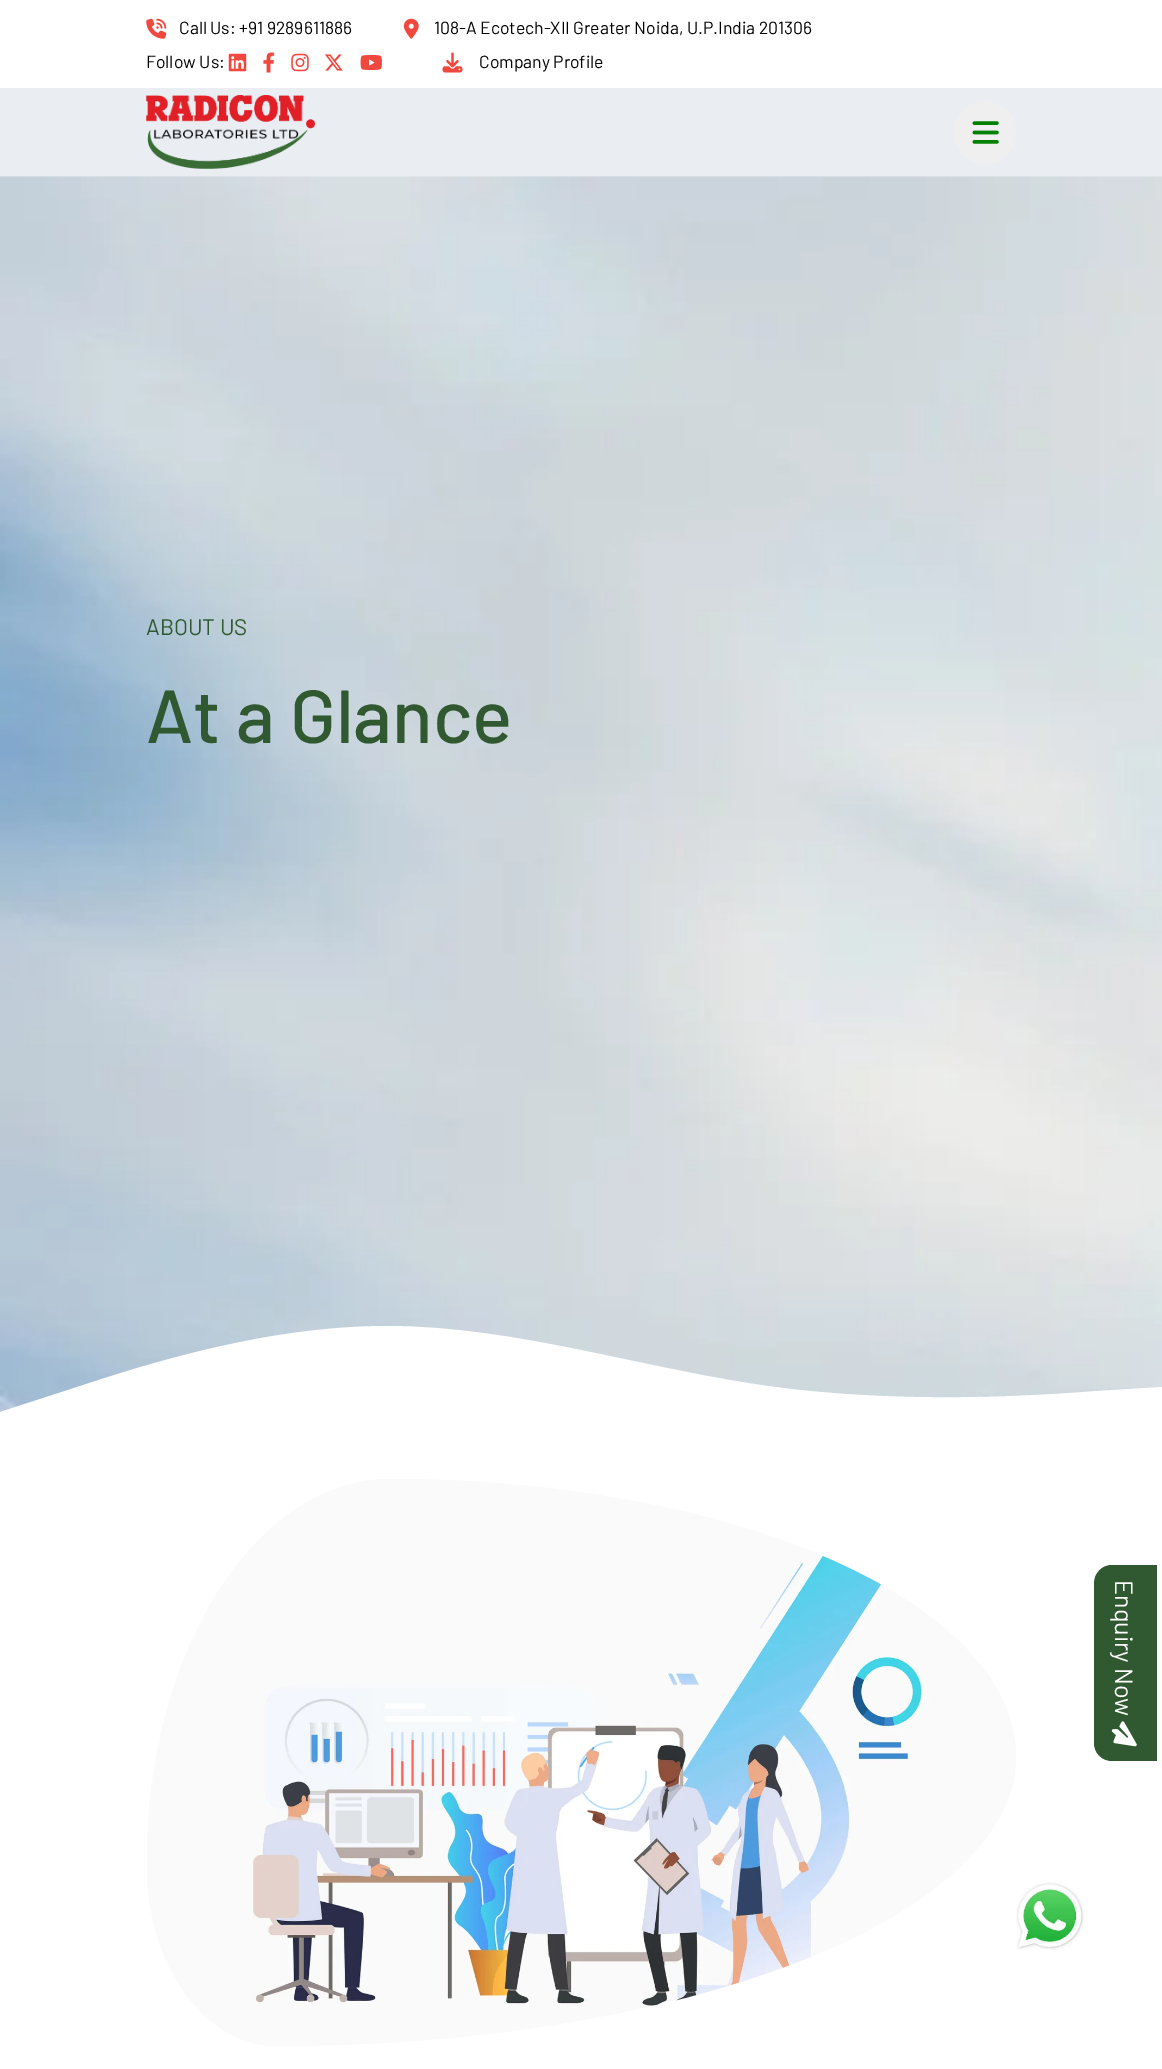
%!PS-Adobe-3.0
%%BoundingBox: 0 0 1162 2069
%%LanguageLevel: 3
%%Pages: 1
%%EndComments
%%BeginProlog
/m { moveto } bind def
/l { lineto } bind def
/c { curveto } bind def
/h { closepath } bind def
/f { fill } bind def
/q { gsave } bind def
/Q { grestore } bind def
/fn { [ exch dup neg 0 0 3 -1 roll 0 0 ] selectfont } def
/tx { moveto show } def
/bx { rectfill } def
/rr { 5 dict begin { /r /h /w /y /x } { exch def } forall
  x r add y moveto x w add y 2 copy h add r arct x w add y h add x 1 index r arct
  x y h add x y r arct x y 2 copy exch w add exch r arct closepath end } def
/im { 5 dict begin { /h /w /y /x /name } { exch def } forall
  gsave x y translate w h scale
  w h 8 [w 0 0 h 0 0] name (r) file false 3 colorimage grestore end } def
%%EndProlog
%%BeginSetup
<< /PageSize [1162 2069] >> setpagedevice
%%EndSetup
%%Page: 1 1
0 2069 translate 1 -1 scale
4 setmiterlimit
1 setgray
0 0 1162 2069 bx
(image0.raw) 146 18 21 21 im
/Barlow-Regular 17.5 fn
0 setgray
(Call Us: +91 9289611886) 179 34 tx
(image1.raw) 403 18 16 21 im
(108-A Ecotech-XII Greater Noida, U.P.India 201306) 434 34 tx
(Follow Us:) 146 68 tx
(image2.raw) 228 53 19 19 im
(image3.raw) 263 52 12 21 im
(image4.raw) 291 53 18 19 im
(image5.raw) 325 54 18 17 im
(image6.raw) 360 55 22 15 im
(image7.raw) 442 52 21 21 im
(Company Profile) 479 68 tx
0.918 0.933 0.953 setrgbcolor
0 88 1162 88 bx
(image8.raw) 146 95 169 74 im
0.937 setgray
954 101 62 63 31 rr f
(image9.raw) 972 121 27 23 im
(image10.raw) 0 176 1162 1236 im
/Barlow-Regular 22.5 fn
0.192 0.349 0.192 setrgbcolor
(ABOUT US) 146 635 tx
/Barlow-Medium 75 fn
(At a Glance) 146 743 tx
q
0 1258 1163 161 rectclip
1 setgray
0 1412 m 65 1391 l 129 1370 258 1326 387 1326 c 517 1326 646 1370 775 1387 c 904 1404 1033 1396 1098 1391 c 1162 1387 l 1162 1516 l 0 1516 l h f
Q
(image11.raw) 147 1479 869 567 im
1157 1565 m 1157 1761 l 1112 1761 l 1102 1761 1094 1753 1094 1743 c 1094 1584 l 1094 1573 1102 1565 1112 1565 c h f
/Barlow-Regular 25 fn
1 setgray
q 1115 1580 translate 90 rotate 0 0 m (Enquiry Now) show Q
(image12.raw) 1111 1721 26 26 im
(image13.raw) 1016 1882 68 68 im
showpage
%%EOF
